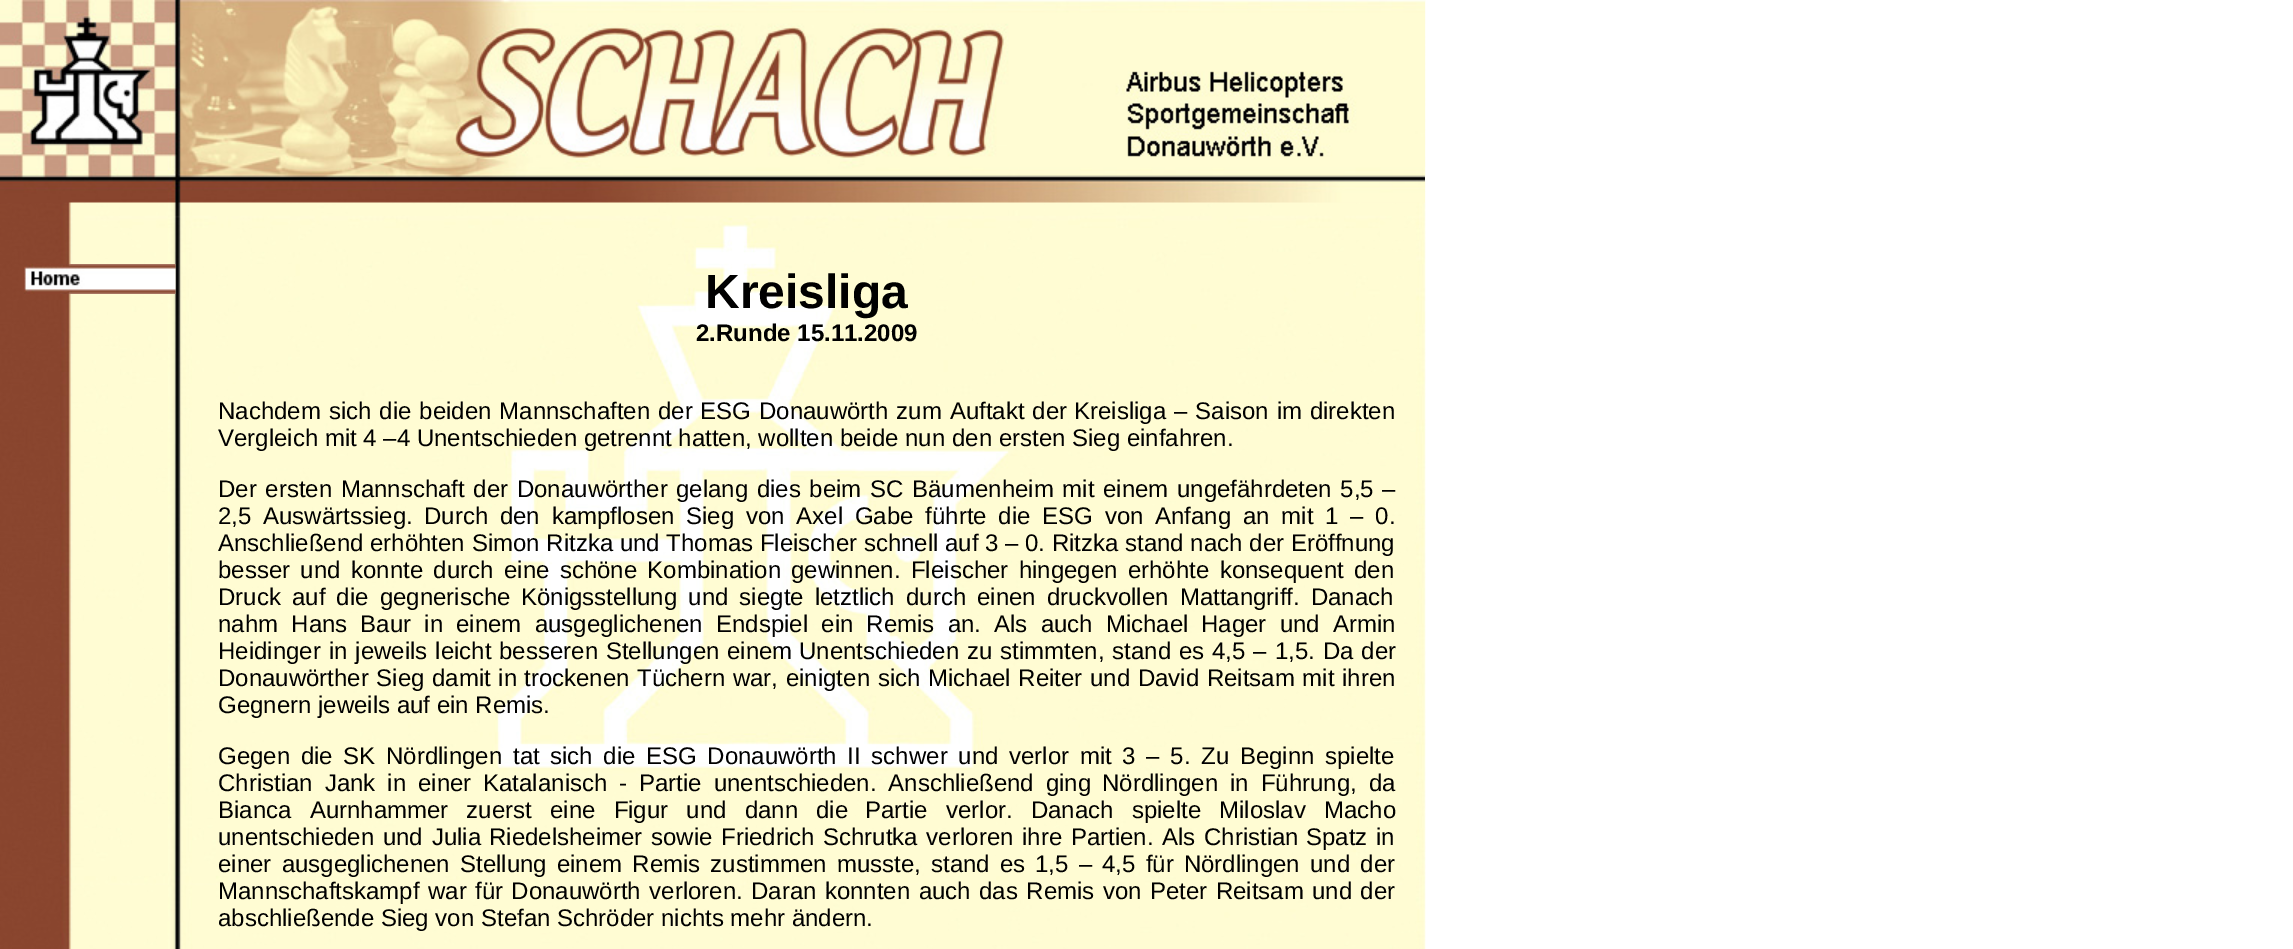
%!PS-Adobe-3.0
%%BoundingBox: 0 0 2293 949
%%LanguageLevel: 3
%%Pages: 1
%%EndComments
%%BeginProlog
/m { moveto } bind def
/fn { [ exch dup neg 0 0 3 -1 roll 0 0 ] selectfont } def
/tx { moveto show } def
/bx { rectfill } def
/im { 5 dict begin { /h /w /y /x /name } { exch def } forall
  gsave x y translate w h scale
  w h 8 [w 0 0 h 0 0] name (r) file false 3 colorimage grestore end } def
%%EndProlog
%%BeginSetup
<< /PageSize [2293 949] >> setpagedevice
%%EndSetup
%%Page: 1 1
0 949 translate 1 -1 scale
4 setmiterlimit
1 setgray
0 0 2293 949 bx
(image0.raw) 0 0 1426 949 im
(image1.raw) 0 0 1425 203 im
(image2.raw) 24 264 152 30 im
/LiberationSans-Bold 48 fn
0 setgray
(Kreisliga) 705 308 tx
/LiberationSans-Bold 24 fn
(2.Runde 15.11.2009) 696 341 tx
/LiberationSans-Regular 24 fn
218 419 m 1.25 0 32 (Nachdem sich die beiden Mannschaften der ESG Donauwörth zum Auftakt der) widthshow
1074 419 m 1.25 0 32 (Kreisliga – Saison im direkten) widthshow
(Vergleich mit 4 –4 Unentschieden getrennt hatten, wollten beide nun den ersten Sieg einfahren.) 218 446 tx
218 497 m 2 0 32 (Der ersten Mannschaft der Donauwörther) widthshow
676 497 m 2 0 32 (gelang dies beim SC Bäumenheim mit einem ungefährdeten 5,5 –) widthshow
218 524 m 5.1 0 32 (2,5 Auswärtssieg.) widthshow
424 524 m 5.1 0 32 (Durch den kampflosen Sieg von Axel Gabe führte die ESG von Anfang an mit 1 – 0.) widthshow
(Anschließend erhöhten Simon Ritzka und Thomas Fleischer schnell auf 3 – 0. Ritzka stand nach der Eröffnung) 218 551 tx
218 578 m 3.75 0 32 (besser und konnte durch eine schöne Kombination) widthshow
791 578 m 3.75 0 32 (gewinnen. Fleischer hingegen erhöhte konsequent den) widthshow
218 605 m 4.5 0 32 (Druck auf die gegnerische) widthshow
521 605 m 4.5 0 32 (Königsstellung und siegte letztlich durch einen druckvollen Mattangriff. Danach) widthshow
218 632 m 6.5 0 32 (nahm Hans Baur in einem ausgeglichenen Endspiel ein Remis an. Als auch Michael) widthshow
1201 632 m 6.5 0 32 (Hager und Armin) widthshow
218 659 m 1.25 0 32 (Heidinger in jeweils leicht besseren Stellungen einem) widthshow
799 659 m 1.25 0 32 (Unentschieden zu stimmten, stand es 4,5 – 1,5. Da der) widthshow
218 686 m 1 0 32 (Donauwörther Sieg damit in) widthshow
524 686 m 1 0 32 (trockenen Tüchern war, einigten sich Michael Reiter und David Reitsam mit ihren) widthshow
(Gegnern jeweils auf ein Remis.) 218 713 tx
218 764 m 4 0 32 (Gegen die SK Nördlingen tat) widthshow
550 764 m 4 0 32 (sich die ESG Donauwörth II schwer und verlor mit 3 – 5. Zu Beginn spielte) widthshow
218 791 m 5.25 0 32 (Christian Jank in einer Katalanisch - Partie unentschieden. Anschließend ging) widthshow
1102 791 m 5.25 0 32 (Nördlingen in Führung, da) widthshow
218 818 m 11.5 0 32 (Bianca Aurnhammer zuerst eine Figur und dann die) widthshow
865 818 m 11.5 0 32 (Partie verlor. Danach spielte Miloslav Macho) widthshow
218 845 m 2 0 32 (unentschieden und Julia) widthshow
489 845 m 2 0 32 (Riedelsheimer sowie Friedrich Schrutka verloren ihre Partien. Als Christian) widthshow
1306 845 m 2 0 32 (Spatz in) widthshow
218 872 m 3.5 0 32 (einer ausgeglichenen Stellung einem Remis zustimmen musste, stand es) widthshow
1035 872 m 3.5 0 32 (1,5 – 4,5 für Nördlingen und der) widthshow
218 899 m 1.75 0 32 (Mannschaftskampf war für Donauwörth verloren.) widthshow
751 899 m 1.75 0 32 (Daran konnten auch das Remis von Peter Reitsam und der) widthshow
(abschließende Sieg von Stefan Schröder nichts mehr ändern.) 218 926 tx
showpage
%%EOF
